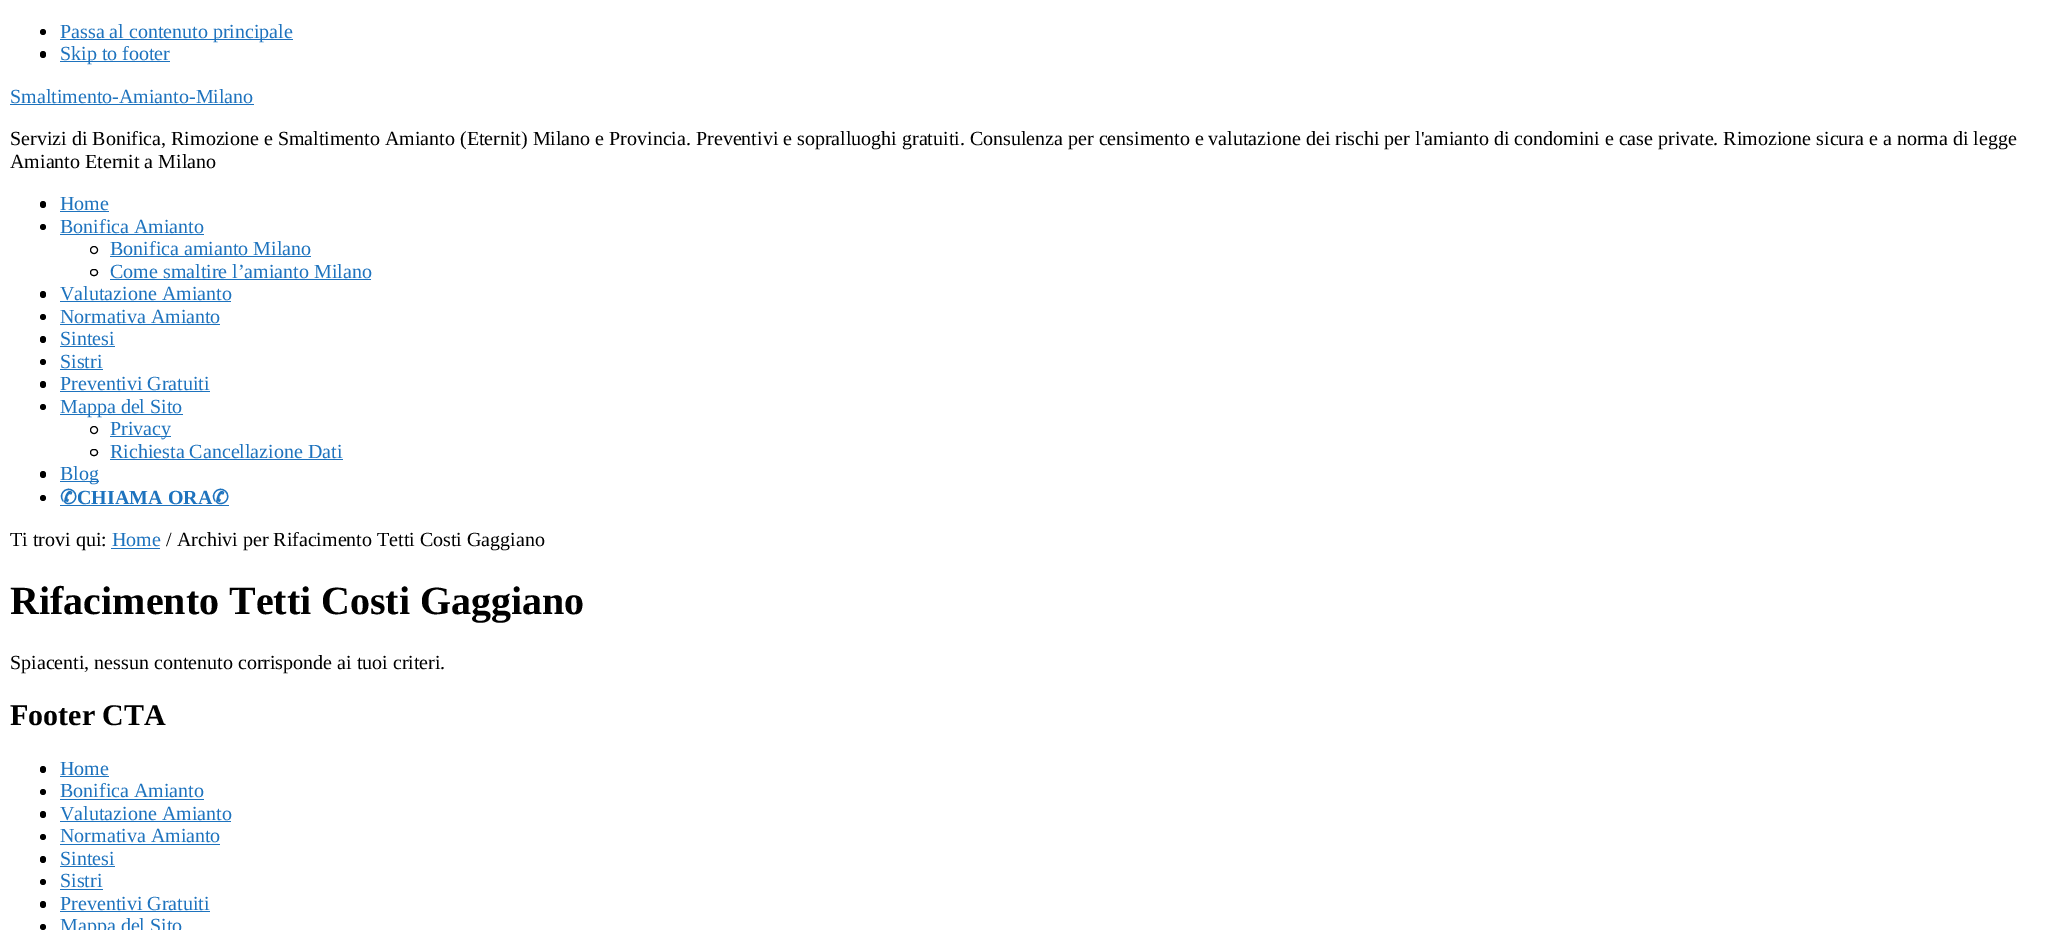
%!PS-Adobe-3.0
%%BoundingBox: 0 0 2054 930
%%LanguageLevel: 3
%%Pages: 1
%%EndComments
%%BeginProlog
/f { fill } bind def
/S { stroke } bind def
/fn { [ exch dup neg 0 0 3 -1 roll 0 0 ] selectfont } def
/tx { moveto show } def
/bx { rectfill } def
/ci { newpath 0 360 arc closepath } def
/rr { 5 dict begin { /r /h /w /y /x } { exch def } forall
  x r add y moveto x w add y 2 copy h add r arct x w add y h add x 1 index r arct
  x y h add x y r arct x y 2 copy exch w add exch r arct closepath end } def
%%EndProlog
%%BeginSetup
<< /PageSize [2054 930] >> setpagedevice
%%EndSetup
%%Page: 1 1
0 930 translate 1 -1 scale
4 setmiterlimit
1 setgray
0 0 2054 930 bx
0 setgray
43 32 3 ci f
0.118 0.451 0.745 setrgbcolor
60 39 233 1 bx
/LiberationSerif-Regular 20 fn
(Passa al contenuto principale) 60 38 tx
0 setgray
40 51 6 7 3 rr f
0.118 0.451 0.745 setrgbcolor
60 61 110 1 bx
(Skip to footer) 60 60 tx
(Smaltimento-Amianto-Milano) 10 103 tx
10 104 244 1 bx
0 setgray
(Servizi di Bonifica, Rimozione e Smaltimento Amianto \(Eternit\) Milano e Provincia. Preventivi e sopralluoghi gratuiti. Consulenza per censimento e valutazione dei rischi per l'amianto di condomini e case private. Rimozione sicura e a norma di legge) 10 145 tx
(Amianto Eternit a Milano) 10 168 tx
40 201 6 7 3 rr f
0.118 0.451 0.745 setrgbcolor
(Home) 60 210 tx
60 211 49 1 bx
0 setgray
43 227 3 ci f
0.118 0.451 0.745 setrgbcolor
(Bonifica Amianto) 60 233 tx
60 234 144 1 bx
0 setgray
94 250 3.5 ci S
0.118 0.451 0.745 setrgbcolor
(Bonifica amianto Milano) 110 255 tx
110 256 201 1 bx
0 setgray
90.5 269.5 7 6 3 rr S
0.118 0.451 0.745 setrgbcolor
(Come smaltire l’amianto Milano) 110 278 tx
110 279 261 1 bx
0 setgray
40 291 6 7 3 rr f
0.118 0.451 0.745 setrgbcolor
(Valutazione Amianto) 60 300 tx
60 301 171 1 bx
0 setgray
43 317 3 ci f
0.118 0.451 0.745 setrgbcolor
(Normativa Amianto) 60 323 tx
60 324 160 1 bx
0 setgray
40 336 6 7 3 rr f
0.118 0.451 0.745 setrgbcolor
(Sintesi) 60 345 tx
60 346 55 1 bx
0 setgray
43 362 3 ci f
0.118 0.451 0.745 setrgbcolor
(Sistri) 60 368 tx
60 369 43 1 bx
0 setgray
40 381 6 7 3 rr f
0.118 0.451 0.745 setrgbcolor
(Preventivi Gratuiti) 60 390 tx
60 391 150 1 bx
0 setgray
43 407 3 ci f
0.118 0.451 0.745 setrgbcolor
60 414 123 1 bx
(Mappa del Sito) 60 413 tx
0 setgray
94 430 3.5 ci S
0.118 0.451 0.745 setrgbcolor
110 436 61 1 bx
(Privacy) 110 435 tx
0 setgray
90.5 449.5 7 6 3 rr S
0.118 0.451 0.745 setrgbcolor
(Richiesta Cancellazione Dati) 110 458 tx
110 459 233 1 bx
0 setgray
40 471 6 7 3 rr f
0.118 0.451 0.745 setrgbcolor
60 481 39 1 bx
(Blog) 60 480 tx
0 setgray
43 498 3 ci f
/DejaVuSans-Bold 20 fn
0.118 0.451 0.745 setrgbcolor
(✆) 60 504 tx
/LiberationSerif-Bold 20 fn
(CHIAMA ORA) 77 504 tx
60 505 169 1 bx
/DejaVuSans-Bold 20 fn
(✆) 212 504 tx
/LiberationSerif-Regular 20 fn
0 setgray
(Ti trovi qui:) 10 546 tx
0.118 0.451 0.745 setrgbcolor
(Home) 112 546 tx
111 548 49 1 bx
0 setgray
(/ Archivi per Rifacimento Tetti Costi Gaggiano) 166 546 tx
/LiberationSerif-Bold 40 fn
(Rifacimento Tetti Costi Gaggiano) 10 614 tx
/LiberationSerif-Regular 20 fn
(Spiacenti, nessun contenuto corrisponde ai tuoi criteri.) 10 669 tx
/LiberationSerif-Bold 30 fn
(Footer CTA) 10 725 tx
40 766 6 7 3 rr f
/LiberationSerif-Regular 20 fn
0.118 0.451 0.745 setrgbcolor
(Home) 60 775 tx
60 776 49 1 bx
0 setgray
43 792 3 ci f
0.118 0.451 0.745 setrgbcolor
(Bonifica Amianto) 60 797 tx
60 799 144 1 bx
0 setgray
40 811 6 7 3 rr f
0.118 0.451 0.745 setrgbcolor
(Valutazione Amianto) 60 820 tx
60 821 171 1 bx
0 setgray
43 837 3 ci f
0.118 0.451 0.745 setrgbcolor
(Normativa Amianto) 60 842 tx
60 844 160 1 bx
0 setgray
40 856 6 7 3 rr f
0.118 0.451 0.745 setrgbcolor
(Sintesi) 60 865 tx
60 866 55 1 bx
0 setgray
43 882 3 ci f
0.118 0.451 0.745 setrgbcolor
(Sistri) 60 887 tx
60 889 43 1 bx
0 setgray
40 901 6 7 3 rr f
0.118 0.451 0.745 setrgbcolor
(Preventivi Gratuiti) 60 910 tx
60 911 150 1 bx
0 setgray
43 927 3 ci f
0.118 0.451 0.745 setrgbcolor
(Mappa del Sito) 60 932 tx
showpage
%%EOF
